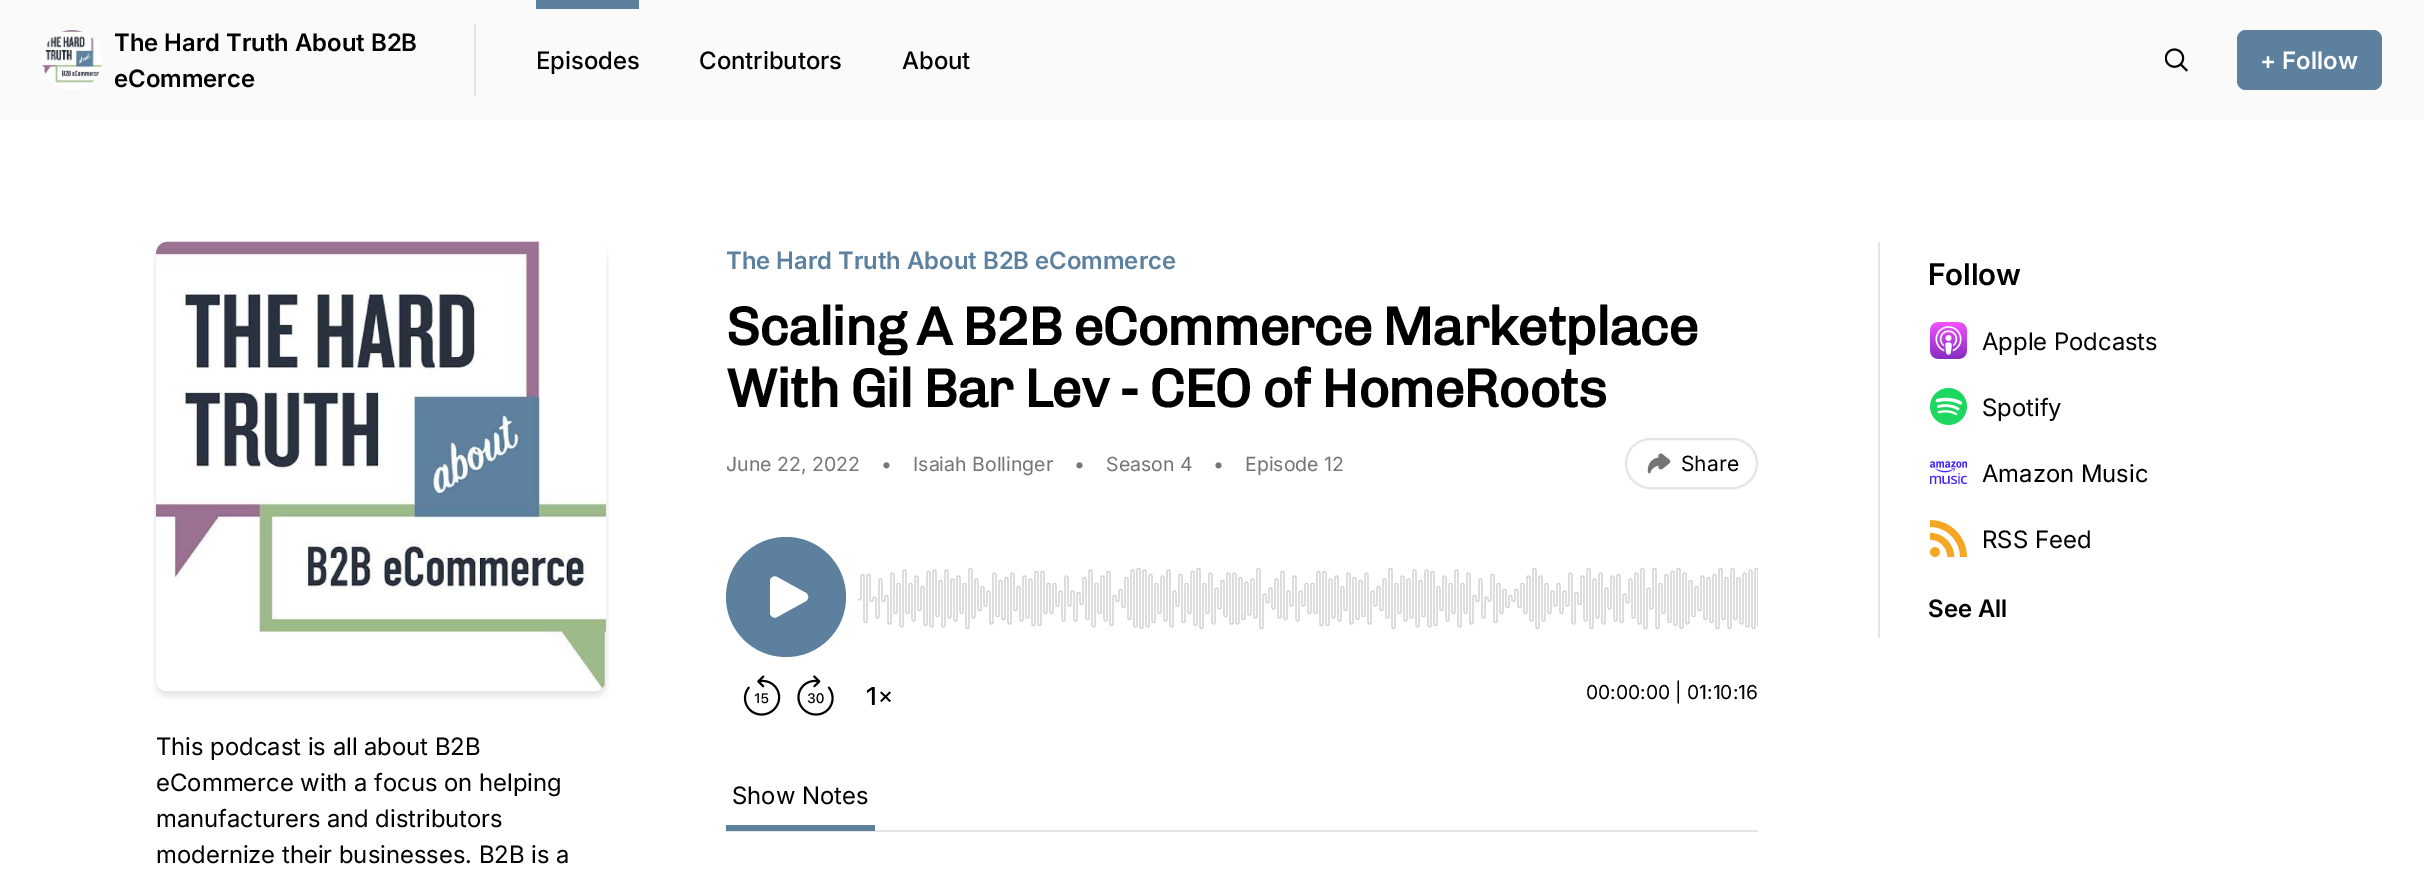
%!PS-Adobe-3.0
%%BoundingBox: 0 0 2424 875
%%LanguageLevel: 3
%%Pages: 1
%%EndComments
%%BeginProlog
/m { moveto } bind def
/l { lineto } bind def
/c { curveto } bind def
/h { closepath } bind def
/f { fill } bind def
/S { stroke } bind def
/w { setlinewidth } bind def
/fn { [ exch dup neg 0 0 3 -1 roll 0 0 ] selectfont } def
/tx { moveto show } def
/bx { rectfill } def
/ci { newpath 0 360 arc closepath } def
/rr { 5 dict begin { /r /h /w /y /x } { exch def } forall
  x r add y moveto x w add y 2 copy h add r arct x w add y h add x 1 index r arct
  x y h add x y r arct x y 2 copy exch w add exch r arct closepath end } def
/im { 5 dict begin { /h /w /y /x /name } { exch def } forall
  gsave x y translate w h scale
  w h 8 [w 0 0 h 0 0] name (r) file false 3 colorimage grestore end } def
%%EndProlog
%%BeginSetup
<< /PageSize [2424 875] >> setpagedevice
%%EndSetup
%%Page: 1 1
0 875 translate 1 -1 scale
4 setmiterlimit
1 setgray
0 0 2424 875 bx
0.98 setgray
0 0 2424 120 bx
0.894 0.898 0.902 setrgbcolor
474 24 2 72 bx
(image0.raw) 42 30 60 60 im
/Inter-SemiBold 24 fn
0 setgray
(The Hard Truth About B2B) 114 51 tx
(eCommerce) 114 87 tx
0.361 0.502 0.62 setrgbcolor
536 0 103 9 bx
/Inter-Medium 24 fn
0 setgray
(Episodes) 536 69 tx
(Contributors) 699 69 tx
(About) 902 69 tx
(image1.raw) 2165 48 23 24 im
0.361 0.502 0.62 setrgbcolor
2237 30 145 60 9 rr f
/Inter-SemiBold 24 fn
1 setgray
(+ Follow) 2260 69 tx
0.361 0.502 0.62 setrgbcolor
(The Hard Truth About B2B eCommerce) 726 269 tx
/Chivo-Bold 54 fn
0 setgray
726 345 m -1.35 0 (Scaling A B2B eCommerce Marketplace) ashow
726 407 m -1.35 0 (With Gil Bar Lev - CEO of HomeRoots) ashow
/Inter-Regular 19.5 fn
0.455 0.459 0.463 setrgbcolor
(June 22, 2022) 726 471 tx
(•) 881 471 tx
(Isaiah Bollinger) 913 471 tx
(•) 1074 471 tx
(Season 4) 1106 471 tx
(•) 1213 471 tx
(Episode 12) 1245 471 tx
0.894 0.898 0.902 setrgbcolor
2 w
1626 439 131 49 24.5 rr S
(image2.raw) 1647 453 24 21 im
/Inter-Regular 21 fn
0 setgray
(Share) 1681 471 tx
(image3.raw) 743 675 38 41 im
(image4.raw) 797 675 37 41 im
(image5.raw) 867 687 24 18 im
0.361 0.502 0.62 setrgbcolor
786 597 60 ci f
1 setgray
770 581 m 770 578 774 575 777 577 c 806 593 l 809 595 809 599 806 601 c 777 617 l 774 619 770 616 770 613 c h eofill
(image6.raw) 858 567 900 63 im
/Inter-Regular 19.25 fn
0 setgray
(00:00:00 | 01:10:16) 1586 699 tx
0.894 0.898 0.902 setrgbcolor
726 830 1032 2 bx
0.361 0.502 0.62 setrgbcolor
726 825 149 6 bx
/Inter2-Regular 24 fn
0 setgray
(Show Notes) 732 804 tx
0.894 0.898 0.902 setrgbcolor
1878 242 2 396 bx
/Inter2-SemiBold 30 fn
0 setgray
(Follow) 1928 285 tx
(image7.raw) 1929 322 39 37 im
/Inter2-Regular 24 fn
(Apple Podcasts) 1982 350 tx
(image8.raw) 1930 388 37 37 im
(Spotify) 1982 416 tx
(image9.raw) 1929 461 39 24 im
(Amazon Music) 1982 482 tx
(image10.raw) 1929 520 38 37 im
(RSS Feed) 1982 548 tx
/Inter-SemiBold 24 fn
(See All) 1928 617 tx
(image11.raw) 153 241 456 458 im
/Inter2-Regular 24 fn
(This podcast is all about B2B) 156 755 tx
(eCommerce with a focus on helping) 156 791 tx
(manufacturers and distributors) 156 827 tx
(modernize their businesses. B2B is a) 156 863 tx
showpage
%%EOF
